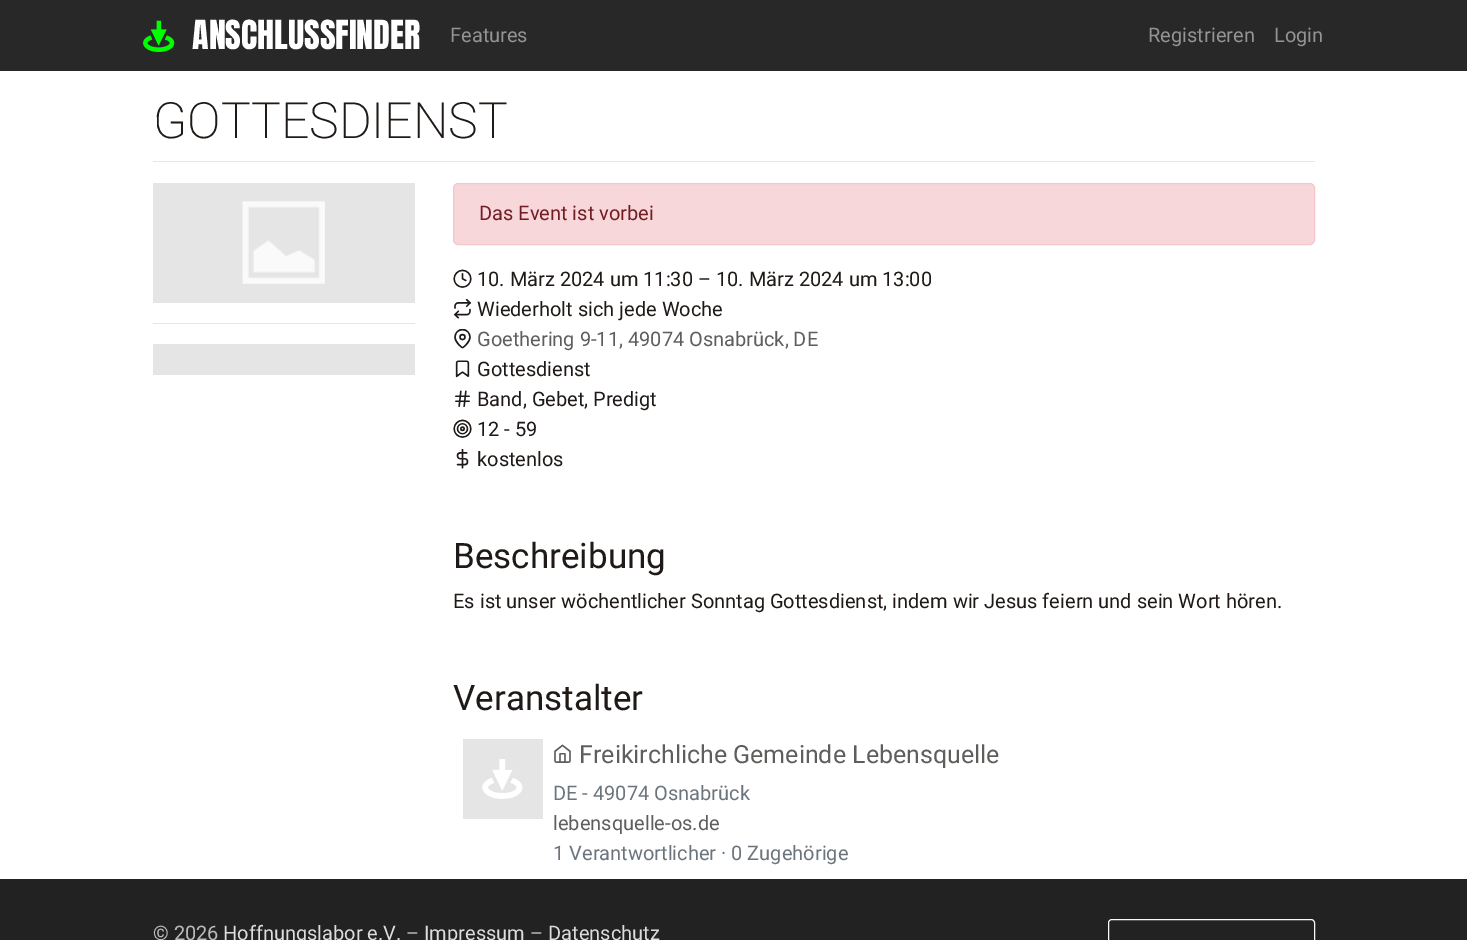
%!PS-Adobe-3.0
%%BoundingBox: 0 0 1467 940
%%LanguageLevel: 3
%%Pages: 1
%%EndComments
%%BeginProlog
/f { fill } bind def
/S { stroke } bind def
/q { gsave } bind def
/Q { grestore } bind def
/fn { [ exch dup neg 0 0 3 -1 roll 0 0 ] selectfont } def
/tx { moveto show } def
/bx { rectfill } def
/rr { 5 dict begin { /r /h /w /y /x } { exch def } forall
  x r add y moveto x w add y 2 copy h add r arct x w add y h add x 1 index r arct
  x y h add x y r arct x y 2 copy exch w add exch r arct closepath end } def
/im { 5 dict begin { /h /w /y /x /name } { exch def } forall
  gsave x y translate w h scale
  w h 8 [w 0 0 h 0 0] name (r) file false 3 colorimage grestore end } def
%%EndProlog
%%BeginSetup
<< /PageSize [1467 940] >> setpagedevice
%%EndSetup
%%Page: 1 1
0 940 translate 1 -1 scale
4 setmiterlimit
1 setgray
0 0 1467 940 bx
0.157 setgray
0 0 1467 71 bx
(image0.raw) 143 20 32 32 im
/Anton-Regular 34 fn
1 setgray
(ANSCHLUSSFINDER) 192 49 tx
/Roboto-Regular 20 fn
0.58 setgray
(Features) 450 42 tx
(Registrieren) 1148 42 tx
(Login) 1274 42 tx
/Roboto-ExtraLight 50 fn
0.122 0.102 0.09 setrgbcolor
(GOTTESDIENST) 153 138 tx
0.902 setgray
153 161 1162 1 bx
0.898 setgray
153 183 262 120 bx
(image1.raw) 242 201 83 83 im
0.902 setgray
153 323 262 1 bx
0.898 setgray
153 344 262 31 bx
0.973 0.843 0.855 setrgbcolor
453.5 183.5 861 61 4.5 rr q f Q
0.961 0.776 0.796 setrgbcolor
S
/Roboto-Regular 20 fn
0.447 0.11 0.141 setrgbcolor
(Das Event ist vorbei) 479 220 tx
(image2.raw) 453 269 19 19 im
0.122 0.102 0.09 setrgbcolor
(10. März 2024 um 11:30 – 10. März 2024 um 13:00) 477 286 tx
(image3.raw) 454 299 17 20 im
(Wiederholt sich jede Woche) 477 316 tx
(image4.raw) 454 329 17 20 im
0.376 0.369 0.365 setrgbcolor
(Goethering 9-11, 49074 Osnabrück, DE) 477 346 tx
(image5.raw) 455 360 15 18 im
0.122 0.102 0.09 setrgbcolor
(Gottesdienst) 477 376 tx
(image6.raw) 455 390 15 17 im
(Band, Gebet, Predigt) 477 406 tx
(image7.raw) 453 419 19 19 im
(12 - 59) 477 436 tx
(image8.raw) 456 449 13 20 im
(kostenlos) 477 466 tx
/Roboto-Regular 35 fn
(Beschreibung) 453 568 tx
/Roboto-Regular 20 fn
(Es ist unser wöchentlicher Sonntag Gottesdienst, indem wir Jesus feiern und sein Wort hören.) 453 608 tx
/Roboto-Regular 35 fn
(Veranstalter) 453 710 tx
0.898 setgray
463 739 80 80 bx
(image9.raw) 482 759 41 40 im
(image10.raw) 554 744 17 19 im
/Roboto-Regular 25 fn
0.376 0.369 0.365 setrgbcolor
(Freikirchliche Gemeinde Lebensquelle) 579 763 tx
/Roboto-Regular 20 fn
0.424 0.459 0.49 setrgbcolor
(DE - 49074 Osnabrück) 553 800 tx
0.376 0.369 0.365 setrgbcolor
(lebensquelle-os.de) 553 830 tx
0.424 0.459 0.49 setrgbcolor
(1 Verantwortlicher · 0 Zugehörige) 553 860 tx
0.133 setgray
0 879 1467 61 bx
0.733 setgray
(© 2026) 153 940 tx
0.867 setgray
(Hoffnungslabor e.V.) 223 940 tx
0.733 setgray
(–) 406 940 tx
0.867 setgray
(Impressum) 424 940 tx
0.733 setgray
(–) 530 940 tx
0.867 setgray
(Datenschutz) 548 940 tx
0.973 0.976 0.98 setrgbcolor
1108.5 919.5 206 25 3.5 rr S
showpage
%%EOF
